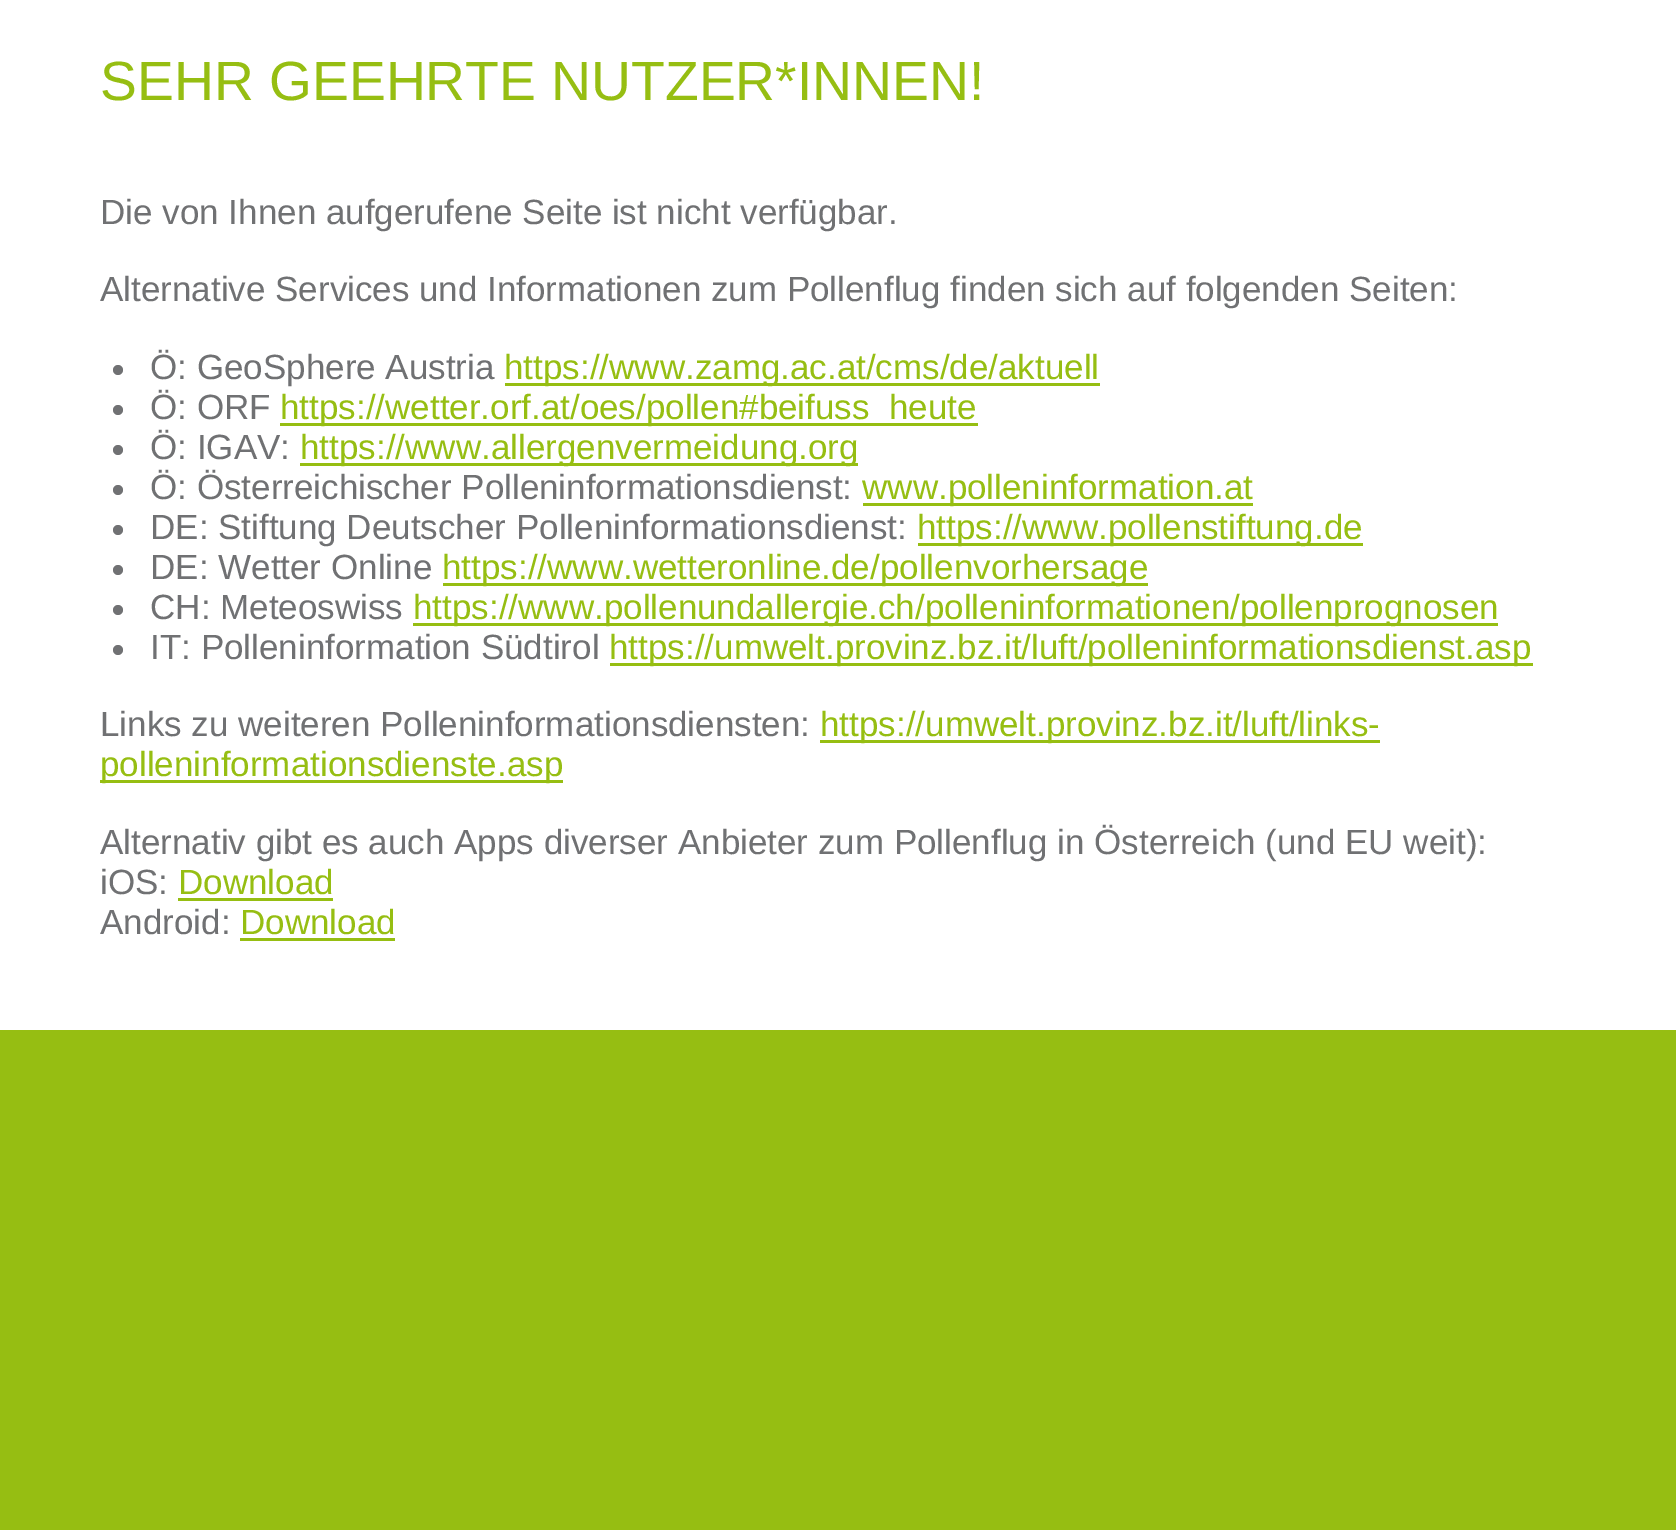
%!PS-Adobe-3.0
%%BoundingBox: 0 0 1676 1530
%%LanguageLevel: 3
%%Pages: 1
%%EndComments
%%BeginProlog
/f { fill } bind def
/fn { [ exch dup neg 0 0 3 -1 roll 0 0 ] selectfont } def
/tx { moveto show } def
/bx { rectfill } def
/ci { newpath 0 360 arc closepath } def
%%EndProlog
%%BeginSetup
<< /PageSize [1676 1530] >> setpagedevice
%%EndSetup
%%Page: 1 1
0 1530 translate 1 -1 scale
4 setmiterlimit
0.588 0.745 0.071 setrgbcolor
0 0 1676 1530 bx
1 setgray
0 0 1676 1030 bx
/LiberationSans-Regular 55.25 fn
0.588 0.745 0.071 setrgbcolor
(SEHR GEEHRTE NUTZER*INNEN!) 100 100 tx
/LiberationSans-Regular 35 fn
0.439 0.443 0.451 setrgbcolor
(Die von Ihnen aufgerufene Seite ist nicht verfügbar.) 100 224 tx
(Alternative Services und Informationen zum Pollenflug finden sich auf folgenden Seiten:) 100 301 tx
118 370 5 ci f
(Ö: GeoSphere Austria) 150 379 tx
0.588 0.745 0.071 setrgbcolor
505 383 595 3 bx
(https://www.zamg.ac.at/cms/de/aktuell) 504 379 tx
0.439 0.443 0.451 setrgbcolor
118 410 5 ci f
(Ö: ORF) 150 419 tx
0.588 0.745 0.071 setrgbcolor
280 423 698 3 bx
(https://wetter.orf.at/oes/pollen#beifuss_heute) 280 419 tx
0.439 0.443 0.451 setrgbcolor
118 450 5 ci f
(Ö: IGAV:) 150 459 tx
0.588 0.745 0.071 setrgbcolor
300 463 558 3 bx
(https://www.allergenvermeidung.org) 300 459 tx
0.439 0.443 0.451 setrgbcolor
118 490 5 ci f
(Ö: Österreichischer Polleninformationsdienst:) 150 499 tx
0.588 0.745 0.071 setrgbcolor
863 503 390 3 bx
(www.polleninformation.at) 862 499 tx
0.439 0.443 0.451 setrgbcolor
118 530 5 ci f
(DE: Stiftung Deutscher Polleninformationsdienst:) 150 539 tx
0.588 0.745 0.071 setrgbcolor
918 543 445 3 bx
(https://www.pollenstiftung.de) 917 539 tx
0.439 0.443 0.451 setrgbcolor
118 570 5 ci f
(DE: Wetter Online) 150 579 tx
0.588 0.745 0.071 setrgbcolor
443 583 705 3 bx
(https://www.wetteronline.de/pollenvorhersage) 442 579 tx
0.439 0.443 0.451 setrgbcolor
118 610 5 ci f
(CH: Meteoswiss) 150 619 tx
0.588 0.745 0.071 setrgbcolor
413 623 1085 3 bx
(https://www.pollenundallergie.ch/polleninformationen/pollenprognosen) 413 619 tx
0.439 0.443 0.451 setrgbcolor
118 650 5 ci f
(IT: Polleninformation Südtirol) 150 659 tx
0.588 0.745 0.071 setrgbcolor
610 663 923 3 bx
(https://umwelt.provinz.bz.it/luft/polleninformationsdienst.asp) 609 659 tx
0.439 0.443 0.451 setrgbcolor
(Links zu weiteren Polleninformationsdiensten:) 100 736 tx
0.588 0.745 0.071 setrgbcolor
820 740 560 3 bx
(https://umwelt.provinz.bz.it/luft/links-) 820 736 tx
100 780 463 3 bx
(polleninformationsdienste.asp) 100 776 tx
0.439 0.443 0.451 setrgbcolor
(Alternativ gibt es auch Apps diverser Anbieter zum Pollenflug in Österreich \(und EU weit\):) 100 854 tx
(iOS:) 100 894 tx
0.588 0.745 0.071 setrgbcolor
(Download) 178 894 tx
178 898 155 3 bx
0.439 0.443 0.451 setrgbcolor
(Android:) 100 934 tx
0.588 0.745 0.071 setrgbcolor
(Download) 240 934 tx
240 938 155 3 bx
showpage
%%EOF
